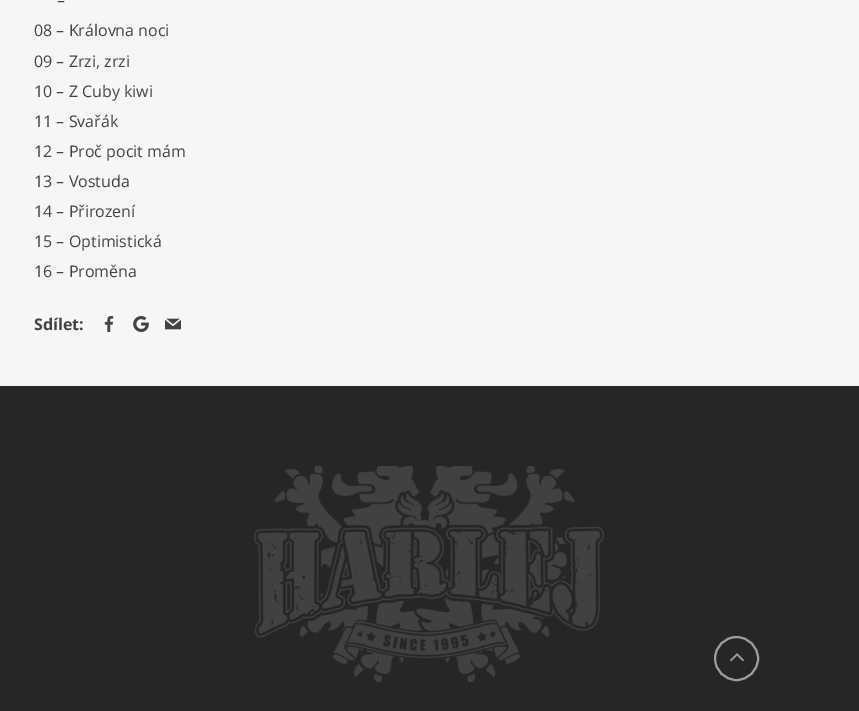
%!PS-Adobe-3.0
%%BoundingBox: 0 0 859 711
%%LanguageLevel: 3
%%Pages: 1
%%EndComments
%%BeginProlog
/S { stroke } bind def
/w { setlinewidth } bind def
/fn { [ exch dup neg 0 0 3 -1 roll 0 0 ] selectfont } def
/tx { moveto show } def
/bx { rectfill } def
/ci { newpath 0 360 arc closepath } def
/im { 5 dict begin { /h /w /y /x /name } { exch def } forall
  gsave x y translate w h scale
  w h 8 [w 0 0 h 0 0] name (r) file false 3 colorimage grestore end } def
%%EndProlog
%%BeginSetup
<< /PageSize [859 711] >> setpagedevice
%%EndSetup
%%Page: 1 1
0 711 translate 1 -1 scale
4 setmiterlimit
0.149 setgray
0 0 859 711 bx
0.965 setgray
0 0 859 386 bx
/OpenSans-Regular 16 fn
0.267 setgray
(–) 57 6 tx
(08 – Královna noci) 34 36 tx
(09 – Zrzi, zrzi) 34 67 tx
(10 – Z Cuby kiwi) 34 97 tx
(11 – Svařák) 34 127 tx
(12 – Proč pocit mám) 34 157 tx
(13 – Vostuda) 34 187 tx
(14 – Přirození) 34 217 tx
(15 – Optimistická) 34 247 tx
(16 – Proměna) 34 277 tx
/OpenSans-Bold 16 fn
(Sdílet:) 34 330 tx
(image0.raw) 104 316 10 16 im
(image1.raw) 133 316 16 16 im
(image2.raw) 165 318 16 12 im
(image3.raw) 254 466 350 216 im
0.616 setgray
2 w
736.5 658.5 21.5 ci S
(image4.raw) 730 653 14 9 im
showpage
%%EOF
